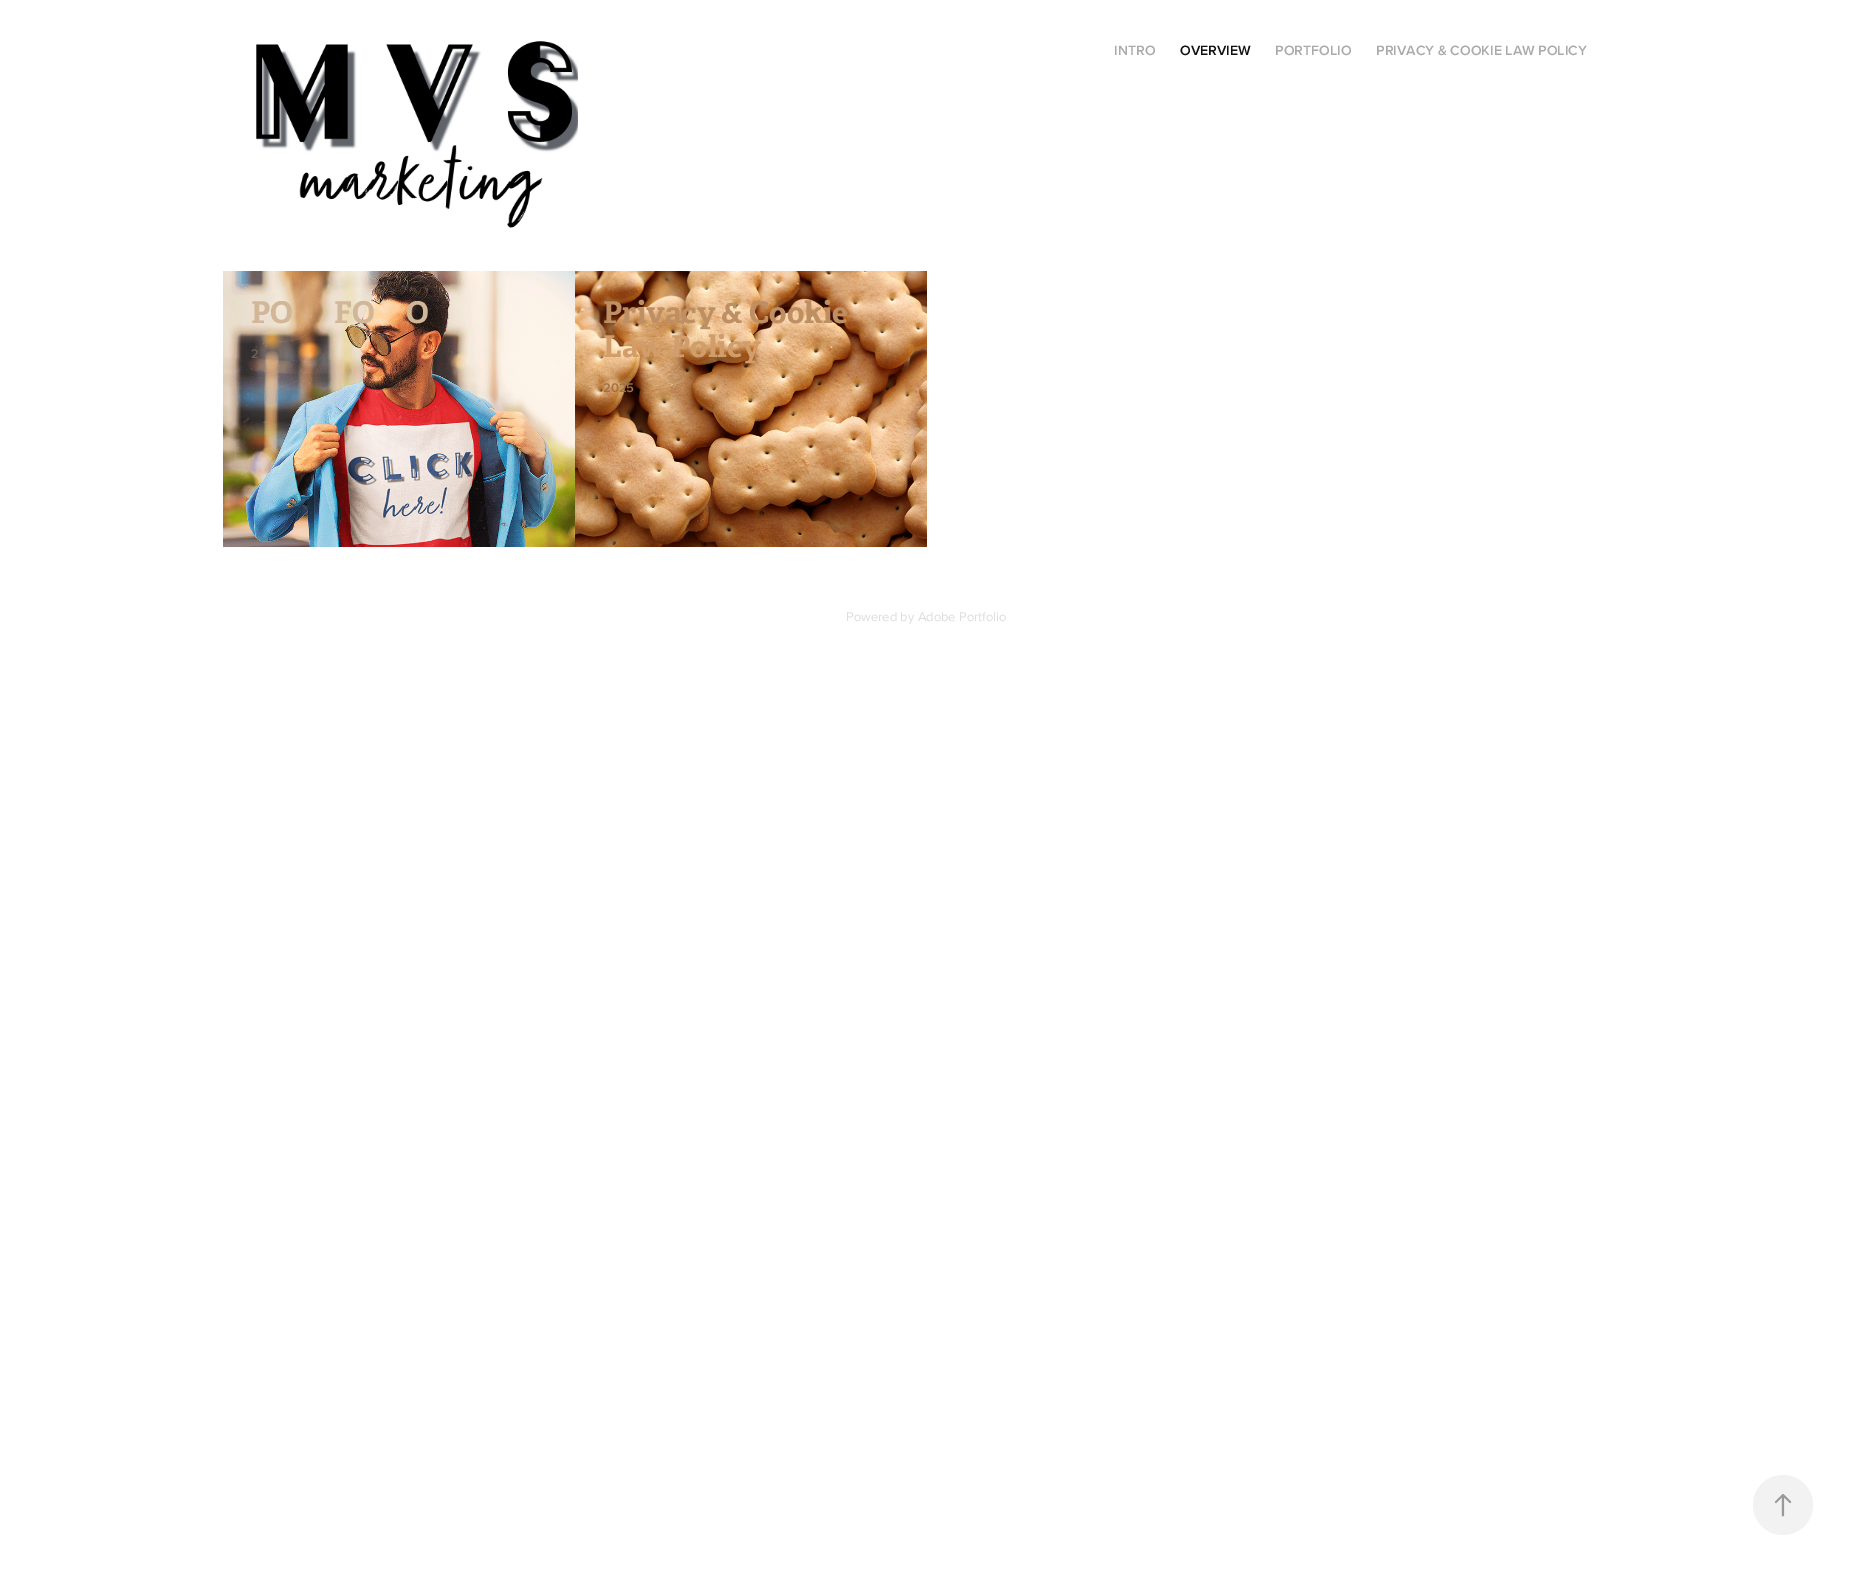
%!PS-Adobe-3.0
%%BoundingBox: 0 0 1853 1575
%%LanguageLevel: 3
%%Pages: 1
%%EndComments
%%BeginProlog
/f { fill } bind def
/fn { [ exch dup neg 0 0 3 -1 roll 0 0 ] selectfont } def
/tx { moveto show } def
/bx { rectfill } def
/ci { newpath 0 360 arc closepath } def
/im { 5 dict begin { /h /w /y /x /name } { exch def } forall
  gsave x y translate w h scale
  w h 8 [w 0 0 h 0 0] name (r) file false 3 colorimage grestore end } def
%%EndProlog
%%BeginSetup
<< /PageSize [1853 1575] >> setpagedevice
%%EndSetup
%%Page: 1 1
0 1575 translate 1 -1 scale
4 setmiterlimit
1 setgray
0 0 1853 1575 bx
(image0.raw) 256 41 322 187 im
/ProximaNova-SemiBold 14 fn
0.667 setgray
(INTRO) 1114 55 tx
0.067 setgray
(OVERVIEW) 1180 55 tx
0.667 setgray
(PORTFOLIO) 1275 55 tx
(PRIVACY & COOKIE LAW POLICY) 1376 55 tx
(image1.raw) 223 271 352 276 im
/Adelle-Bold 30 fn
0.824 0.714 0.596 setrgbcolor
(PO) 251 323 tx
(FO) 334 323 tx
(O) 406 323 tx
/ProximaNova-SemiBold 13 fn
0.431 0.376 0.349 setrgbcolor
(2) 251 358 tx
(image2.raw) 575 271 352 276 im
/Adelle-Bold 30 fn
0.749 0.561 0.392 setrgbcolor
(Privacy & Cookie) 603 323 tx
0.82 0.616 0.416 setrgbcolor
(Law Policy) 603 357 tx
/ProximaNova-SemiBold 13 fn
0.62 0.443 0.275 setrgbcolor
(2025) 603 392 tx
/ProximaNova-Regular 13 fn
0.867 setgray
(Powered by Adobe Portfolio) 846 621 tx
0.949 setgray
1783 1505 30 ci f
(image3.raw) 1774 1494 18 23 im
showpage
%%EOF
